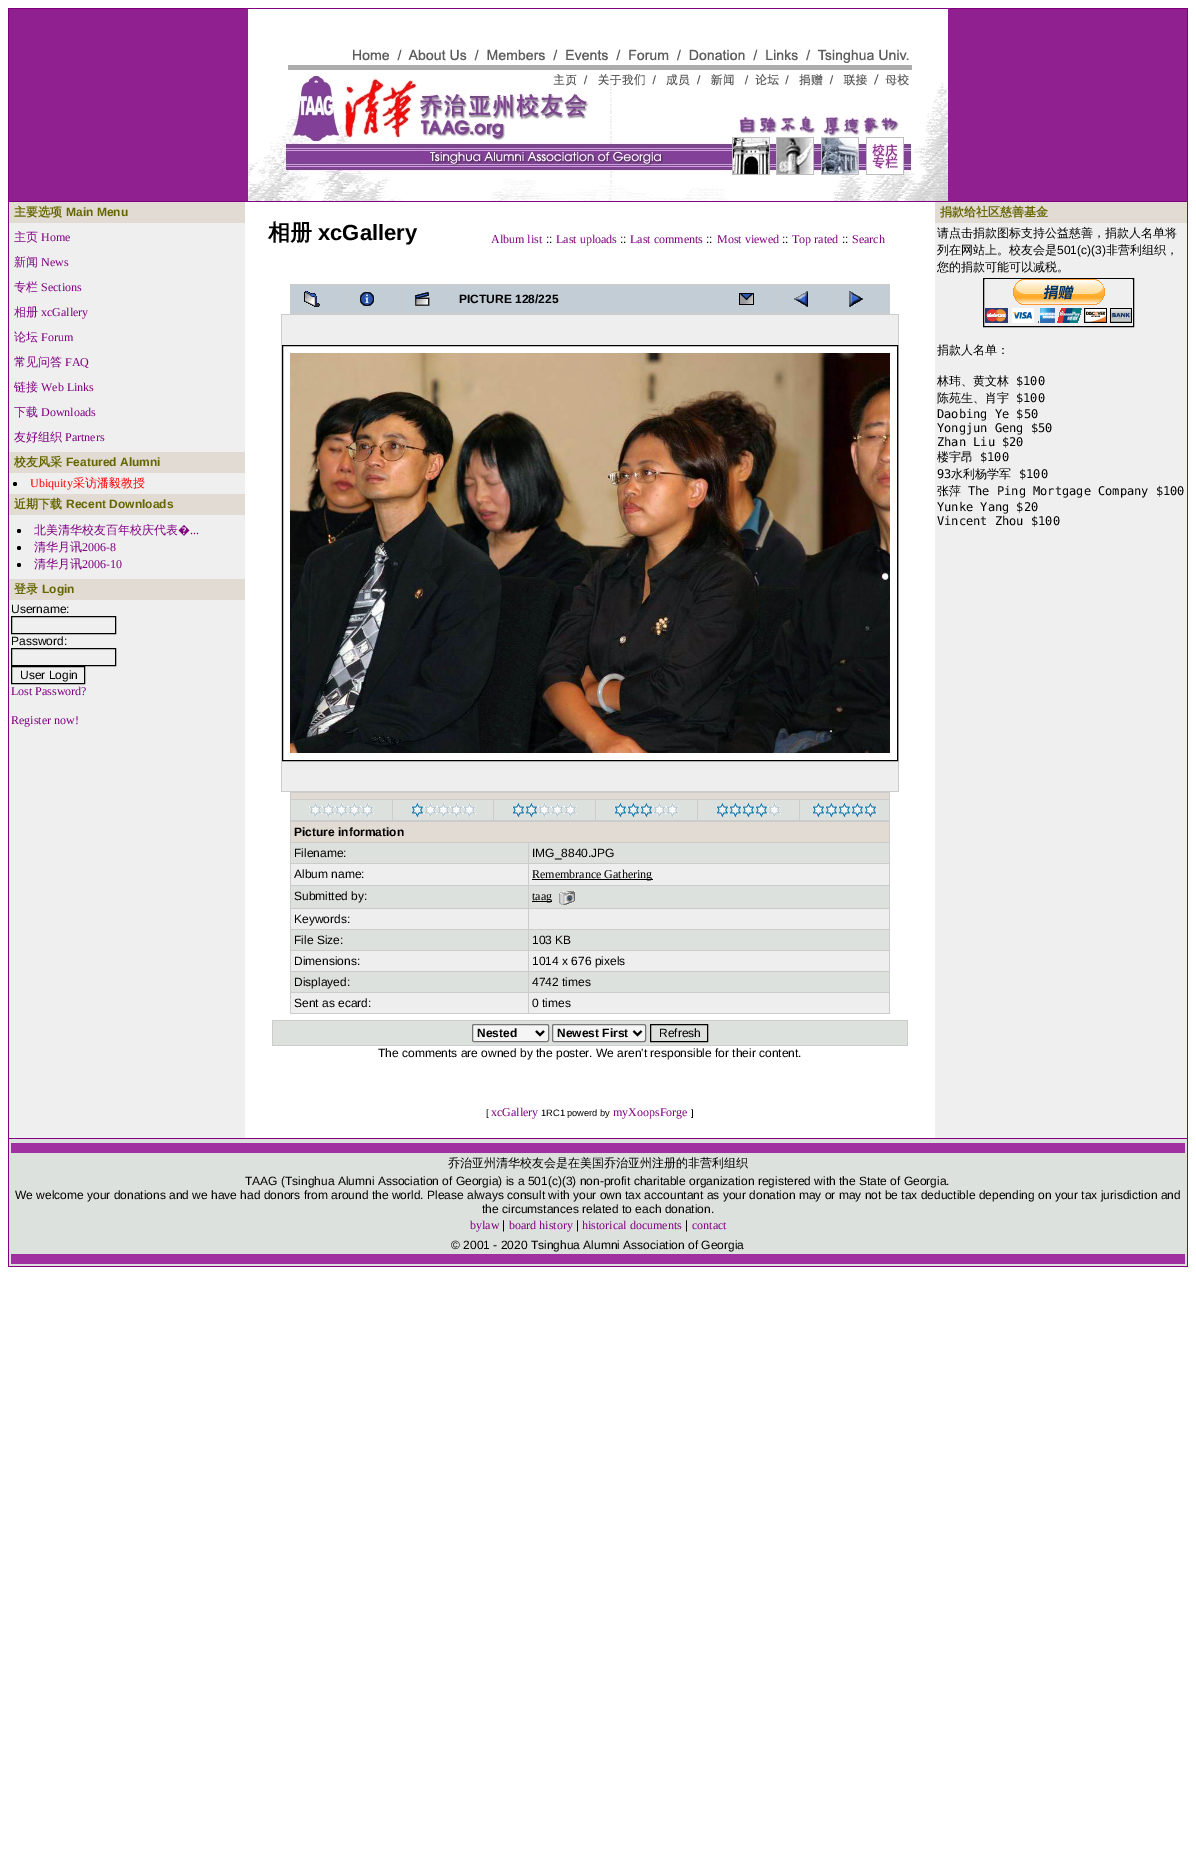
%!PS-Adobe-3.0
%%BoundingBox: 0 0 1196 1858
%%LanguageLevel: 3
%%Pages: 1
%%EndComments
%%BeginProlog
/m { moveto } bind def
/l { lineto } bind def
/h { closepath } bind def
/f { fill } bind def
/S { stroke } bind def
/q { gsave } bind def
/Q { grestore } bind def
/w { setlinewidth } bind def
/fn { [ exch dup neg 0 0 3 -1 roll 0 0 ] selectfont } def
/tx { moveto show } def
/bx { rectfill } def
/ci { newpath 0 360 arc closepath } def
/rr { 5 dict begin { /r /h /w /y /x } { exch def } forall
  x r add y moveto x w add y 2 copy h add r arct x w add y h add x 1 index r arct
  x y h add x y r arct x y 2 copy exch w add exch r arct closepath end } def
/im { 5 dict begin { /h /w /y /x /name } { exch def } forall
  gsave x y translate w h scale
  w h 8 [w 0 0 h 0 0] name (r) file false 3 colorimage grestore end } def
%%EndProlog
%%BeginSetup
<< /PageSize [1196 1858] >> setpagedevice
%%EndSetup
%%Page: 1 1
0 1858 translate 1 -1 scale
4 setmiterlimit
1 setgray
0 0 1196 1858 bx
0.502 0 0.502 setrgbcolor
8 8 1180 1259 bx
0.565 0.125 0.565 setrgbcolor
9 9 1178 192 bx
(image0.raw) 248 9 700 192 im
1 setgray
245 202 690 936 bx
0.937 setgray
9 223 236 915 bx
0.886 0.859 0.827 setrgbcolor
9 202 236 21 bx
/WenQuanYiZenHei-Bold 12 fn
0.4 0.4 0 setrgbcolor
(主要选项) 14 216 tx
/LiberationSans-Bold 12 fn
(Main Menu) 66 216 tx
/WenQuanYiZenHei-Medium 12 fn
0.502 0 0.502 setrgbcolor
(主页) 14 241 tx
/LiberationSerif-Regular 12 fn
(Home) 41 241 tx
/WenQuanYiZenHei-Medium 12 fn
(新闻) 14 266 tx
/LiberationSerif-Regular 12 fn
(News) 41 266 tx
/WenQuanYiZenHei-Medium 12 fn
(专栏) 14 291 tx
/LiberationSerif-Regular 12 fn
(Sections) 41 291 tx
/WenQuanYiZenHei-Medium 12 fn
(相册) 14 316 tx
/LiberationSerif-Regular 12 fn
(xcGallery) 41 316 tx
/WenQuanYiZenHei-Medium 12 fn
(论坛) 14 341 tx
/LiberationSerif-Regular 12 fn
(Forum) 41 341 tx
/WenQuanYiZenHei-Medium 12 fn
(常见问答) 14 366 tx
/LiberationSerif-Regular 12 fn
(FAQ) 65 366 tx
/WenQuanYiZenHei-Medium 12 fn
(链接) 14 391 tx
/LiberationSerif-Regular 12 fn
(Web Links) 41 391 tx
/WenQuanYiZenHei-Medium 12 fn
(下载) 14 416 tx
/LiberationSerif-Regular 12 fn
(Downloads) 41 416 tx
/WenQuanYiZenHei-Medium 12 fn
(友好组织) 14 441 tx
/LiberationSerif-Regular 12 fn
(Partners) 65 441 tx
0.886 0.859 0.827 setrgbcolor
9 452 236 21 bx
/WenQuanYiZenHei-Bold 12 fn
0.4 0.4 0 setrgbcolor
(校友风采) 14 466 tx
/LiberationSans-Bold 12 fn
(Featured Alumni) 66 466 tx
0 setgray
15 484 2 ci f
/LiberationSerif-Regular 12 fn
1 0 0 setrgbcolor
(Ubiquity) 30 487 tx
/WenQuanYiZenHei-Medium 12 fn
(采访潘毅教授) 73 487 tx
0.886 0.859 0.827 setrgbcolor
9 494 236 21 bx
/WenQuanYiZenHei-Bold 12 fn
0.4 0.4 0 setrgbcolor
(近期下载) 14 508 tx
/LiberationSans-Bold 12 fn
(Recent Downloads) 66 508 tx
0 setgray
19 531 2 ci f
/WenQuanYiZenHei-Medium 12 fn
0.502 0 0.502 setrgbcolor
(北美清华校友百年校庆代表) 34 534 tx
/NotoSans-Regular 12 fn
(�) 178 534 tx
/LiberationSerif-Regular 12 fn
(...) 190 534 tx
0 setgray
19 548 2 ci f
/WenQuanYiZenHei-Medium 12 fn
0.502 0 0.502 setrgbcolor
(清华月讯) 34 551 tx
/LiberationSerif-Regular 12 fn
(2006-8) 82 551 tx
0 setgray
19 565 2 ci f
/WenQuanYiZenHei-Medium 12 fn
0.502 0 0.502 setrgbcolor
(清华月讯) 34 568 tx
/LiberationSerif-Regular 12 fn
(2006-10) 82 568 tx
0.886 0.859 0.827 setrgbcolor
9 579 236 21 bx
/WenQuanYiZenHei-Bold 12 fn
0.4 0.4 0 setrgbcolor
(登录) 14 593 tx
/LiberationSans-Bold 12 fn
(Login) 42 593 tx
/LiberationSans-Regular 12 fn
0 setgray
(Username:) 11 613 tx
11.5 616.5 104 17 rectstroke
(Password:) 11 645 tx
11.5 648.5 104 17 rectstroke
11.5 666.5 73 17 rectstroke
(User Login) 20 679 tx
/LiberationSerif-Regular 12 fn
0.502 0 0.502 setrgbcolor
(Lost Password?) 11 695 tx
(Register now!) 11 724 tx
/WenQuanYiZenHei-Bold 22 fn
0 setgray
(相册) 268 240 tx
/LiberationSans-Bold 22 fn
(xcGallery) 318 240 tx
/LiberationSerif-Regular 12 fn
0.502 0 0.502 setrgbcolor
(Album list) 491 243 tx
/LiberationSans-Regular 12 fn
0 setgray
(::) 546 243 tx
/LiberationSerif-Regular 12 fn
0.502 0 0.502 setrgbcolor
(Last uploads) 556 243 tx
/LiberationSans-Regular 12 fn
0 setgray
(::) 620 243 tx
/LiberationSerif-Regular 12 fn
0.502 0 0.502 setrgbcolor
(Last comments) 630 243 tx
/LiberationSans-Regular 12 fn
0 setgray
(::) 706 243 tx
/LiberationSerif-Regular 12 fn
0.502 0 0.502 setrgbcolor
(Most viewed) 717 243 tx
/LiberationSans-Regular 12 fn
0 setgray
(::) 782 243 tx
/LiberationSerif-Regular 12 fn
0.502 0 0.502 setrgbcolor
(Top rated) 792 243 tx
/LiberationSans-Regular 12 fn
0 setgray
(::) 842 243 tx
/LiberationSerif-Regular 12 fn
0.502 0 0.502 setrgbcolor
(Search) 852 243 tx
0.8 setgray
290 284 600 30 bx
0.761 0.804 0.839 setrgbcolor
291 285 54 28 bx
(image1.raw) 304 291 16 16 im
346 285 54 28 bx
(image2.raw) 360 292 14 14 im
401 285 54 28 bx
(image3.raw) 415 292 15 14 im
456 285 268 28 bx
/LiberationSans-Bold 12 fn
0 setgray
(PICTURE 128/225) 459 303 tx
0.761 0.804 0.839 setrgbcolor
725 285 54 28 bx
(image4.raw) 739 293 15 12 im
780 285 54 28 bx
(image5.raw) 794 291 14 16 im
835 285 54 28 bx
(image6.raw) 849 291 14 16 im
0.8 setgray
281 314 618 478 bx
0.933 setgray
282 315 616 476 bx
1 setgray
282.5 345.5 m 897.5 345.5 l 897.5 760.5 l 282.5 760.5 l h q f Q
0 setgray
S
(image7.raw) 290 353 600 400 im
0.8 setgray
290 792 600 222 bx
0.886 0.859 0.827 setrgbcolor
291 793 598 6 bx
0.867 0.882 0.871 setrgbcolor
291 800 101 20 bx
(image8.raw) 309 803 65 14 im
393 800 100 20 bx
(image9.raw) 411 803 65 14 im
494 800 101 20 bx
(image10.raw) 512 803 65 14 im
596 800 101 20 bx
(image11.raw) 614 803 65 14 im
698 800 101 20 bx
(image12.raw) 716 803 65 14 im
800 800 89 20 bx
(image13.raw) 812 803 65 14 im
0.886 0.859 0.827 setrgbcolor
291 822 598 20 bx
0 setgray
(Picture information) 294 836 tx
0.867 0.882 0.871 setrgbcolor
291 843 237 20 bx
/LiberationSans-Regular 12 fn
0 setgray
(Filename:) 294 857 tx
0.867 0.882 0.871 setrgbcolor
529 843 360 20 bx
0 setgray
(IMG_8840.JPG) 532 857 tx
0.933 setgray
291 864 237 21 bx
0 setgray
(Album name:) 294 878 tx
0.933 setgray
529 864 360 21 bx
0 setgray
532 879 121 1 bx
/LiberationSerif-Regular 12 fn
(Remembrance Gathering) 532 878 tx
0.867 0.882 0.871 setrgbcolor
291 886 237 22 bx
/LiberationSans-Regular 12 fn
0 setgray
(Submitted by:) 294 900 tx
0.867 0.882 0.871 setrgbcolor
529 886 360 22 bx
0 setgray
532 901 20 1 bx
/LiberationSerif-Regular 12 fn
(taag) 532 900 tx
(image14.raw) 559 891 16 14 im
0.933 setgray
291 909 237 20 bx
/LiberationSans-Regular 12 fn
0 setgray
(Keywords:) 294 923 tx
0.933 setgray
529 909 360 20 bx
0.867 0.882 0.871 setrgbcolor
291 930 237 20 bx
0 setgray
(File Size:) 294 944 tx
0.867 0.882 0.871 setrgbcolor
529 930 360 20 bx
0 setgray
(103 KB) 532 944 tx
0.933 setgray
291 951 237 20 bx
0 setgray
(Dimensions:) 294 965 tx
0.933 setgray
529 951 360 20 bx
0 setgray
(1014 x 676 pixels) 532 965 tx
0.867 0.882 0.871 setrgbcolor
291 972 237 20 bx
0 setgray
(Displayed:) 294 986 tx
0.867 0.882 0.871 setrgbcolor
529 972 360 20 bx
0 setgray
(4742 times) 532 986 tx
0.933 setgray
291 993 237 20 bx
0 setgray
(Sent as ecard:) 294 1007 tx
0.933 setgray
529 993 360 20 bx
0 setgray
(0 times) 532 1007 tx
0.8 setgray
272 1020 636 26 bx
0.867 0.882 0.871 setrgbcolor
273 1021 634 24 bx
0.961 setgray
472.5 1024.5 76 17 1.5 rr q f Q
0.463 setgray
S
0 setgray
2 w
536 1031 m 540 1035 l 544 1031 l S
/LiberationSans-Bold 12 fn
(Nested) 477 1037 tx
0.961 setgray
552.5 1024.5 93 17 1.5 rr q f Q
0.463 setgray
1 w
S
0 setgray
2 w
633.5 1031 m 637.5 1035 l 641.5 1031 l S
(Newest First) 557 1037 tx
1 w
650.5 1024.5 57 17 rectstroke
/LiberationSans-Regular 12 fn
(Refresh) 659 1037 tx
(The comments are owned by the poster. We aren't responsible for their content.) 378 1057 tx
/LiberationSans-Regular 9.25 fn
([) 486 1116 tx
/LiberationSerif-Regular 12 fn
0.502 0 0.502 setrgbcolor
(xcGallery) 491 1116 tx
/LiberationSans-Regular 9.25 fn
0 setgray
(1RC1 powerd by) 541 1116 tx
/LiberationSerif-Regular 12 fn
0.502 0 0.502 setrgbcolor
(myXoopsForge) 613 1116 tx
/LiberationSans-Regular 9.25 fn
0 setgray
(]) 691 1116 tx
0.937 setgray
935 223 252 915 bx
0.886 0.859 0.827 setrgbcolor
935 202 252 21 bx
/WenQuanYiZenHei-Bold 12 fn
0.4 0.4 0 setrgbcolor
(捐款给社区慈善基金) 940 216 tx
/WenQuanYiZenHei-Medium 12 fn
0 setgray
(请点击捐款图标支持公益慈善，捐款人名单将) 937 237 tx
(列在网站上。校友会是) 937 254 tx
/LiberationSans-Regular 12 fn
(501\(c\)\(3\)) 1057 254 tx
/WenQuanYiZenHei-Medium 12 fn
(非营利组织，) 1106 254 tx
(您的捐款可能可以减税。) 937 271 tx
983.5 278.5 150 48 rectstroke
(image15.raw) 985 279 147 44 im
(捐款人名单：) 937 354 tx
(林玮、黄文林) 937 385 tx
/DejaVuSansMono-Regular 12 fn
($100) 1016 385 tx
/WenQuanYiZenHei-Medium 12 fn
(陈苑生、肖宇) 937 402 tx
/DejaVuSansMono-Regular 12 fn
($100) 1016 402 tx
(Daobing Ye $50) 937 418 tx
(Yongjun Geng $50) 937 432 tx
(Zhan Liu $20) 937 446 tx
/WenQuanYiZenHei-Medium 12 fn
(楼宇昂) 937 461 tx
/DejaVuSansMono-Regular 12 fn
($100) 980 461 tx
(93) 937 478 tx
/WenQuanYiZenHei-Medium 12 fn
(水利杨学军) 951 478 tx
/DejaVuSansMono-Regular 12 fn
($100) 1019 478 tx
/WenQuanYiZenHei-Medium 12 fn
(张萍) 937 495 tx
/DejaVuSansMono-Regular 12 fn
(The Ping Mortgage Company $100) 968 495 tx
(Yunke Yang $20) 937 511 tx
(Vincent Zhou $100) 937 525 tx
0.867 0.882 0.871 setrgbcolor
9 1139 1178 127 bx
0.627 0.188 0.627 setrgbcolor
11 1143 1174 10 bx
/WenQuanYiZenHei-Medium 12 fn
0 setgray
(乔治亚州清华校友会是在美国乔治亚州注册的非营利组织) 448 1167 tx
/LiberationSans-Regular 12 fn
(TAAG \(Tsinghua Alumni Association of Georgia\) is a 501\(c\)\(3\) non-profit charitable organization registered with the State of Georgia.) 245 1185 tx
(We welcome your donations and we have had donors from around the world. Please always consult with your own tax accountant as your donation may or may not be tax deductible depending on your tax jurisdiction and) 15 1199 tx
(the circumstances related to each donation.) 482 1213 tx
/LiberationSerif-Regular 12 fn
0.502 0 0.502 setrgbcolor
(bylaw) 470 1229 tx
/LiberationSans-Regular 12 fn
0 setgray
(|) 502 1229 tx
/LiberationSerif-Regular 12 fn
0.502 0 0.502 setrgbcolor
(board history) 509 1229 tx
/LiberationSans-Regular 12 fn
0 setgray
(|) 576 1229 tx
/LiberationSerif-Regular 12 fn
0.502 0 0.502 setrgbcolor
(historical documents) 582 1229 tx
/LiberationSans-Regular 12 fn
0 setgray
(|) 685 1229 tx
/LiberationSerif-Regular 12 fn
0.502 0 0.502 setrgbcolor
(contact) 692 1229 tx
/LiberationSans-Regular 12 fn
0 setgray
(© 2001 - 2020 Tsinghua Alumni Association of Georgia) 451 1249 tx
0.627 0.188 0.627 setrgbcolor
11 1254 1174 10 bx
showpage
%%EOF
